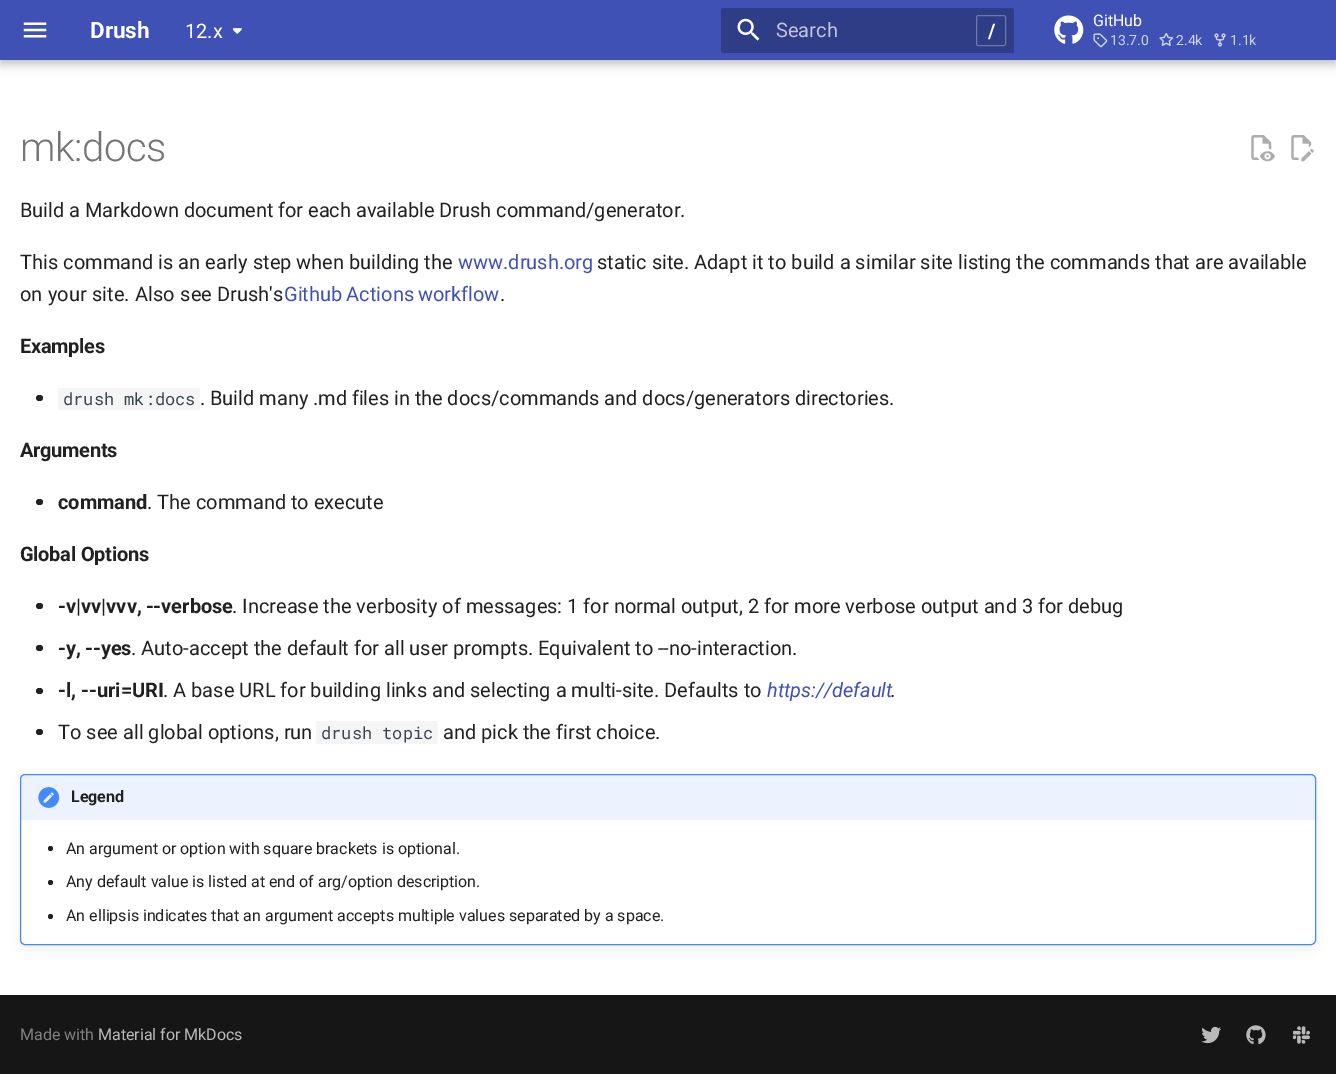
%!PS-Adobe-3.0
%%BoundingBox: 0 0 1336 1074
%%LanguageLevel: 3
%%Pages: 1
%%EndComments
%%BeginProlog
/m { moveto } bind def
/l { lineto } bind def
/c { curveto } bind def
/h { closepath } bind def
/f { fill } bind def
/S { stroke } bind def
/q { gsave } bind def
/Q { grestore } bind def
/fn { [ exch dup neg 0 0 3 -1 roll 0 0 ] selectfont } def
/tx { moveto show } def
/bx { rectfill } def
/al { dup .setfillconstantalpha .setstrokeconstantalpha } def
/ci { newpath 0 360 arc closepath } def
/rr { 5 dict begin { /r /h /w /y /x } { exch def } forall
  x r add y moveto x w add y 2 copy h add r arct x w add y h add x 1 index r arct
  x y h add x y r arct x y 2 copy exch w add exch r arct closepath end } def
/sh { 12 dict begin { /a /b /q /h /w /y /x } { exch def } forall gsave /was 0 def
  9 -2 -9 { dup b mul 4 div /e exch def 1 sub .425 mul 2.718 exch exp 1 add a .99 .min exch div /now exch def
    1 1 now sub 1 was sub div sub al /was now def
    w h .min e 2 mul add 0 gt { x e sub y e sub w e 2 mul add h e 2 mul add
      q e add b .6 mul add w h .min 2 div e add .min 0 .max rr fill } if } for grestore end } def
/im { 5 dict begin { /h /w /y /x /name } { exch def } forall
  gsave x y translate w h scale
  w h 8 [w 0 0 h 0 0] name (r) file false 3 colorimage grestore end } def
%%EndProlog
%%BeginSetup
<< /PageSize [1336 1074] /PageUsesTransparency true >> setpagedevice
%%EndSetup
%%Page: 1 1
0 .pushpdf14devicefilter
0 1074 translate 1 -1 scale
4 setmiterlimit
1 setgray
0 0 1336 1074 bx
0 setgray
0 5 1336 60 0 5 0.2 sh
0 0 1336 60 0 2.5 0.1 sh
0.251 0.318 0.71 setrgbcolor
0 0 1336 60 bx
(image0.raw) 23 22 24 16 im
/Roboto-Bold 22.5 fn
1 setgray
(Drush) 90 38 tx
/Roboto-Regular 20 fn
(12.x) 185 38 tx
(image1.raw) 233 28 9 6 im
0.184 0.235 0.525 setrgbcolor
721 8 293 45 2.5 rr f
(image2.raw) 737 18 23 23 im
0.757 0.773 0.859 setrgbcolor
(Search) 776 37 tx
0.427 0.467 0.667 setrgbcolor
976.5 15.5 29 30 2 rr S
/Roboto-Bold 20 fn
1 setgray
(/) 988 38 tx
(image3.raw) 1054 15 30 29 im
/Roboto-Regular 16 fn
(GitHub) 1093 26 tx
(image4.raw) 1093 33 15 15 im
/Roboto-Regular 14 fn
0.812 0.831 0.929 setrgbcolor
(13.7.0) 1110 45 tx
(image5.raw) 1159 33 15 13 im
(2.4k) 1176 45 tx
(image6.raw) 1214 33 12 14 im
(1.1k) 1230 45 tx
/Roboto-Light 40 fn
0.459 setgray
20 161 m -0.5 0 (mk:docs) ashow
(image7.raw) 1251 135 24 27 im
(image8.raw) 1291 135 23 27 im
/Roboto-Regular 20 fn
0.129 setgray
20 217 m -0.25 0 32 (Build a Markdown document for each available Drush command/generator.) widthshow
(This command is an early step when building the) 20 269 tx
0.251 0.318 0.71 setrgbcolor
(www.drush.org) 458 269 tx
0.129 setgray
(static site. Adapt it to build a similar site listing the commands that are available) 597 269 tx
20 301 m 0.5 0 32 (on your site. Also see Drush's) widthshow
0.251 0.318 0.71 setrgbcolor
284 301 m -1 0 32 (Github Actions workflow) widthshow
0.129 setgray
(.) 500 301 tx
/Roboto-Bold 20 fn
20 353 m -0.25 0 (Examples) ashow
36 395 7 6 3 rr f
0.961 setgray
58 388 142 22 2.5 rr f
/RobotoMono-Regular 17 fn
0.212 0.275 0.306 setrgbcolor
(drush mk:docs) 63 405 tx
/Roboto-Regular 20 fn
0.129 setgray
200 405 m -0.25 0 32 (. Build many .md files in the docs/commands and docs/generators directories.) widthshow
/Roboto-Bold 20 fn
20 457 m -0.25 0 (Arguments) ashow
36 499 7 6 3 rr f
(command) 58 509 tx
/Roboto-Regular 20 fn
(. The command to execute) 147 509 tx
/Roboto-Bold 20 fn
20 561 m -0.25 0 (Global Options) ashow
36 603 7 6 3 rr f
58 613 m -1 0 32 (-v|vv|vvv, --verbose) widthshow
/Roboto-Regular 20 fn
(. Increase the verbosity of messages: 1 for normal output, 2 for more verbose output and 3 for debug) 232 613 tx
36 645 7 6 3 rr f
/Roboto-Bold 20 fn
58 655 m -1 0 32 (-y, --yes) widthshow
/Roboto-Regular 20 fn
131 655 m -0.1 0 32 (. Auto-accept the default for all user prompts. Equivalent to --no-interaction.) widthshow
36 688 7 6 3 rr f
/Roboto-Bold 20 fn
(-l, --uri=URI) 58 697 tx
/Roboto-Regular 20 fn
(. A base URL for building links and selecting a multi-site. Defaults to) 163 697 tx
/Roboto-Italic 20 fn
0.251 0.318 0.71 setrgbcolor
(https://default) 767 697 tx
/Roboto-Regular 20 fn
0.129 setgray
(.) 890 697 tx
36 729 7 6 3 rr f
(To see all global options, run) 58 739 tx
0.961 setgray
316 721 122 23 2.5 rr f
/RobotoMono-Regular 17 fn
0.212 0.275 0.306 setrgbcolor
(drush topic) 321 739 tx
/Roboto-Regular 20 fn
0.129 setgray
(and pick the first choice.) 443 739 tx
0 setgray
20 774 1296 171 5 0.5 0.1 sh
20 779 1296 171 5 6 0.05 sh
1 setgray
20.5 774.5 1295 170 4.5 rr q f Q
0.267 0.541 1 setrgbcolor
S
0.1 al
23.5 775 m 1312.5 775 l 1314 775 1315 776 1315 777.5 c 1315 820 l 21 820 l 21 777.5 l 21 776 22 775 23.5 775 c h f
1 al
(image9.raw) 38 787 22 21 im
/Roboto-Bold 16 fn
0.129 setgray
(Legend) 71 802 tx
50.5 848.5 2.5 ci f
/Roboto-Regular 16 fn
(An argument or option with square brackets is optional.) 66 854 tx
50.5 882.5 2.5 ci f
(Any default value is listed at end of arg/option description.) 66 887 tx
50.5 916.5 2.5 ci f
(An ellipsis indicates that an argument accepts multiple values separated by a space.) 66 921 tx
0.086 setgray
0 995 1336 79 bx
0.498 setgray
(Made with) 20 1040 tx
0.725 setgray
(Material for MkDocs) 98 1040 tx
(image10.raw) 1201 1026 20 18 im
(image11.raw) 1246 1025 20 20 im
(image12.raw) 1293 1026 17 18 im
.poppdf14devicefilter showpage
%%EOF
